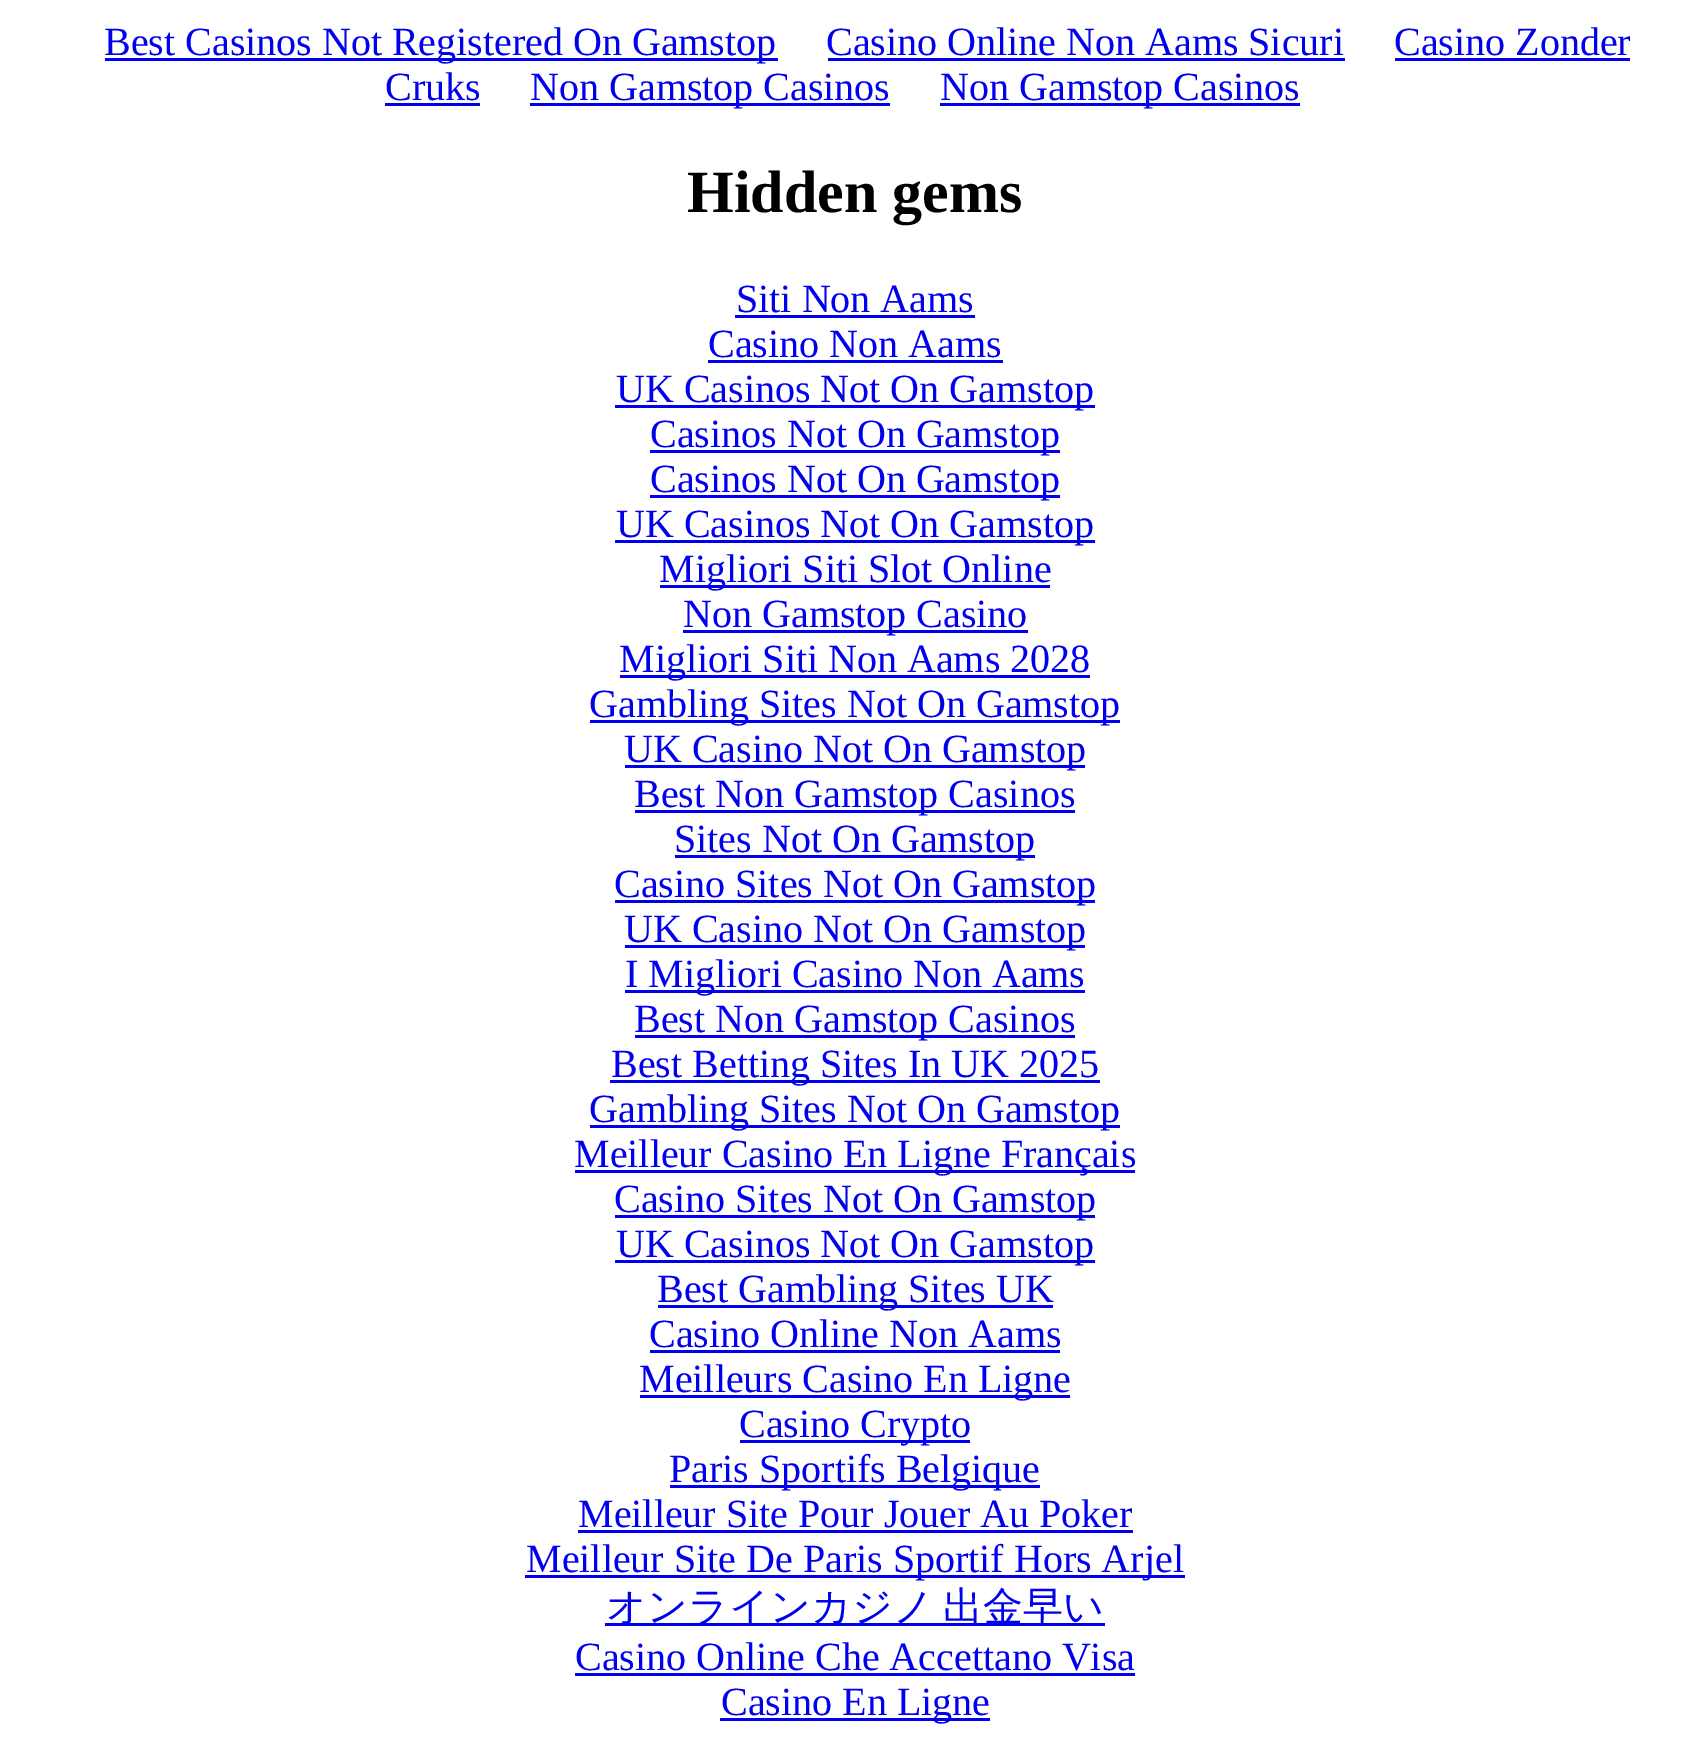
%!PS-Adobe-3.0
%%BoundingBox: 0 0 1708 1750
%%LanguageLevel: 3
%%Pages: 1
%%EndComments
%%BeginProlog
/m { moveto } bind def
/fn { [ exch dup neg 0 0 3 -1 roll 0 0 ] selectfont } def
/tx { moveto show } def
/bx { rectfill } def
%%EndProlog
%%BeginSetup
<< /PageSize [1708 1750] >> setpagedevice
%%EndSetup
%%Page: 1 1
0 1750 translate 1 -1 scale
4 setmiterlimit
1 setgray
0 0 1708 1750 bx
0 0 0.933 setrgbcolor
105 58 673 3 bx
/LiberationSerif-Regular 40 fn
(Best Casinos Not Registered On Gamstop) 104 55 tx
(Casino Online Non Aams Sicuri) 826 55 tx
828 58 517 3 bx
(Casino Zonder) 1394 55 tx
1395 58 235 3 bx
(Cruks) 385 100 tx
385 103 95 3 bx
530 103 360 3 bx
(Non Gamstop Casinos) 530 100 tx
940 103 360 3 bx
(Non Gamstop Casinos) 940 100 tx
/LiberationSerif-Bold 60 fn
0 setgray
(Hidden gems) 687 212 tx
/LiberationSerif-Regular 40 fn
0 0 0.933 setrgbcolor
(Siti Non Aams) 736 312 tx
735 315 240 3 bx
(Casino Non Aams) 708 357 tx
708 360 295 3 bx
615 405 480 3 bx
(UK Casinos Not On Gamstop) 616 402 tx
650 450 410 3 bx
(Casinos Not On Gamstop) 650 447 tx
650 495 410 3 bx
(Casinos Not On Gamstop) 650 492 tx
615 540 480 3 bx
(UK Casinos Not On Gamstop) 616 537 tx
660 585 390 3 bx
(Migliori Siti Slot Online) 659 582 tx
683 630 345 3 bx
(Non Gamstop Casino) 683 627 tx
620 675 470 3 bx
(Migliori Siti Non Aams 2028) 619 672 tx
590 720 530 3 bx
(Gambling Sites Not On Gamstop) 589 717 tx
625 765 460 3 bx
(UK Casino Not On Gamstop) 624 762 tx
635 810 440 3 bx
(Best Non Gamstop Casinos) 634 807 tx
675 855 360 3 bx
(Sites Not On Gamstop) 674 852 tx
615 900 480 3 bx
(Casino Sites Not On Gamstop) 614 897 tx
625 945 460 3 bx
(UK Casino Not On Gamstop) 624 942 tx
625 990 460 3 bx
(I Migliori Casino Non Aams) 625 987 tx
635 1035 440 3 bx
(Best Non Gamstop Casinos) 634 1032 tx
610 1080 490 3 bx
(Best Betting Sites In UK 2025) 611 1077 tx
590 1125 530 3 bx
(Gambling Sites Not On Gamstop) 589 1122 tx
575 1170 560 3 bx
(Meilleur Casino En Ligne Français) 574 1167 tx
615 1215 480 3 bx
(Casino Sites Not On Gamstop) 614 1212 tx
615 1260 480 3 bx
(UK Casinos Not On Gamstop) 616 1257 tx
658 1305 395 3 bx
(Best Gambling Sites UK) 657 1302 tx
(Casino Online Non Aams) 649 1347 tx
650 1350 410 3 bx
640 1395 430 3 bx
(Meilleurs Casino En Ligne) 639 1392 tx
740 1440 230 3 bx
(Casino Crypto) 739 1437 tx
670 1485 370 3 bx
(Paris Sportifs Belgique) 669 1482 tx
(Meilleur Site Pour Jouer Au Poker) 578 1527 tx
578 1530 555 3 bx
525 1575 660 3 bx
(Meilleur Site De Paris Sportif Hors Arjel) 526 1572 tx
605 1623 500 3 bx
/WenQuanYiZenHei-Medium 40 fn
606 1620 m -2 0 32 (オンラインカジノ 出金早い) widthshow
/LiberationSerif-Regular 40 fn
(Casino Online Che Accettano Visa) 575 1670 tx
575 1673 560 3 bx
720 1718 270 3 bx
(Casino En Ligne) 721 1715 tx
showpage
%%EOF
